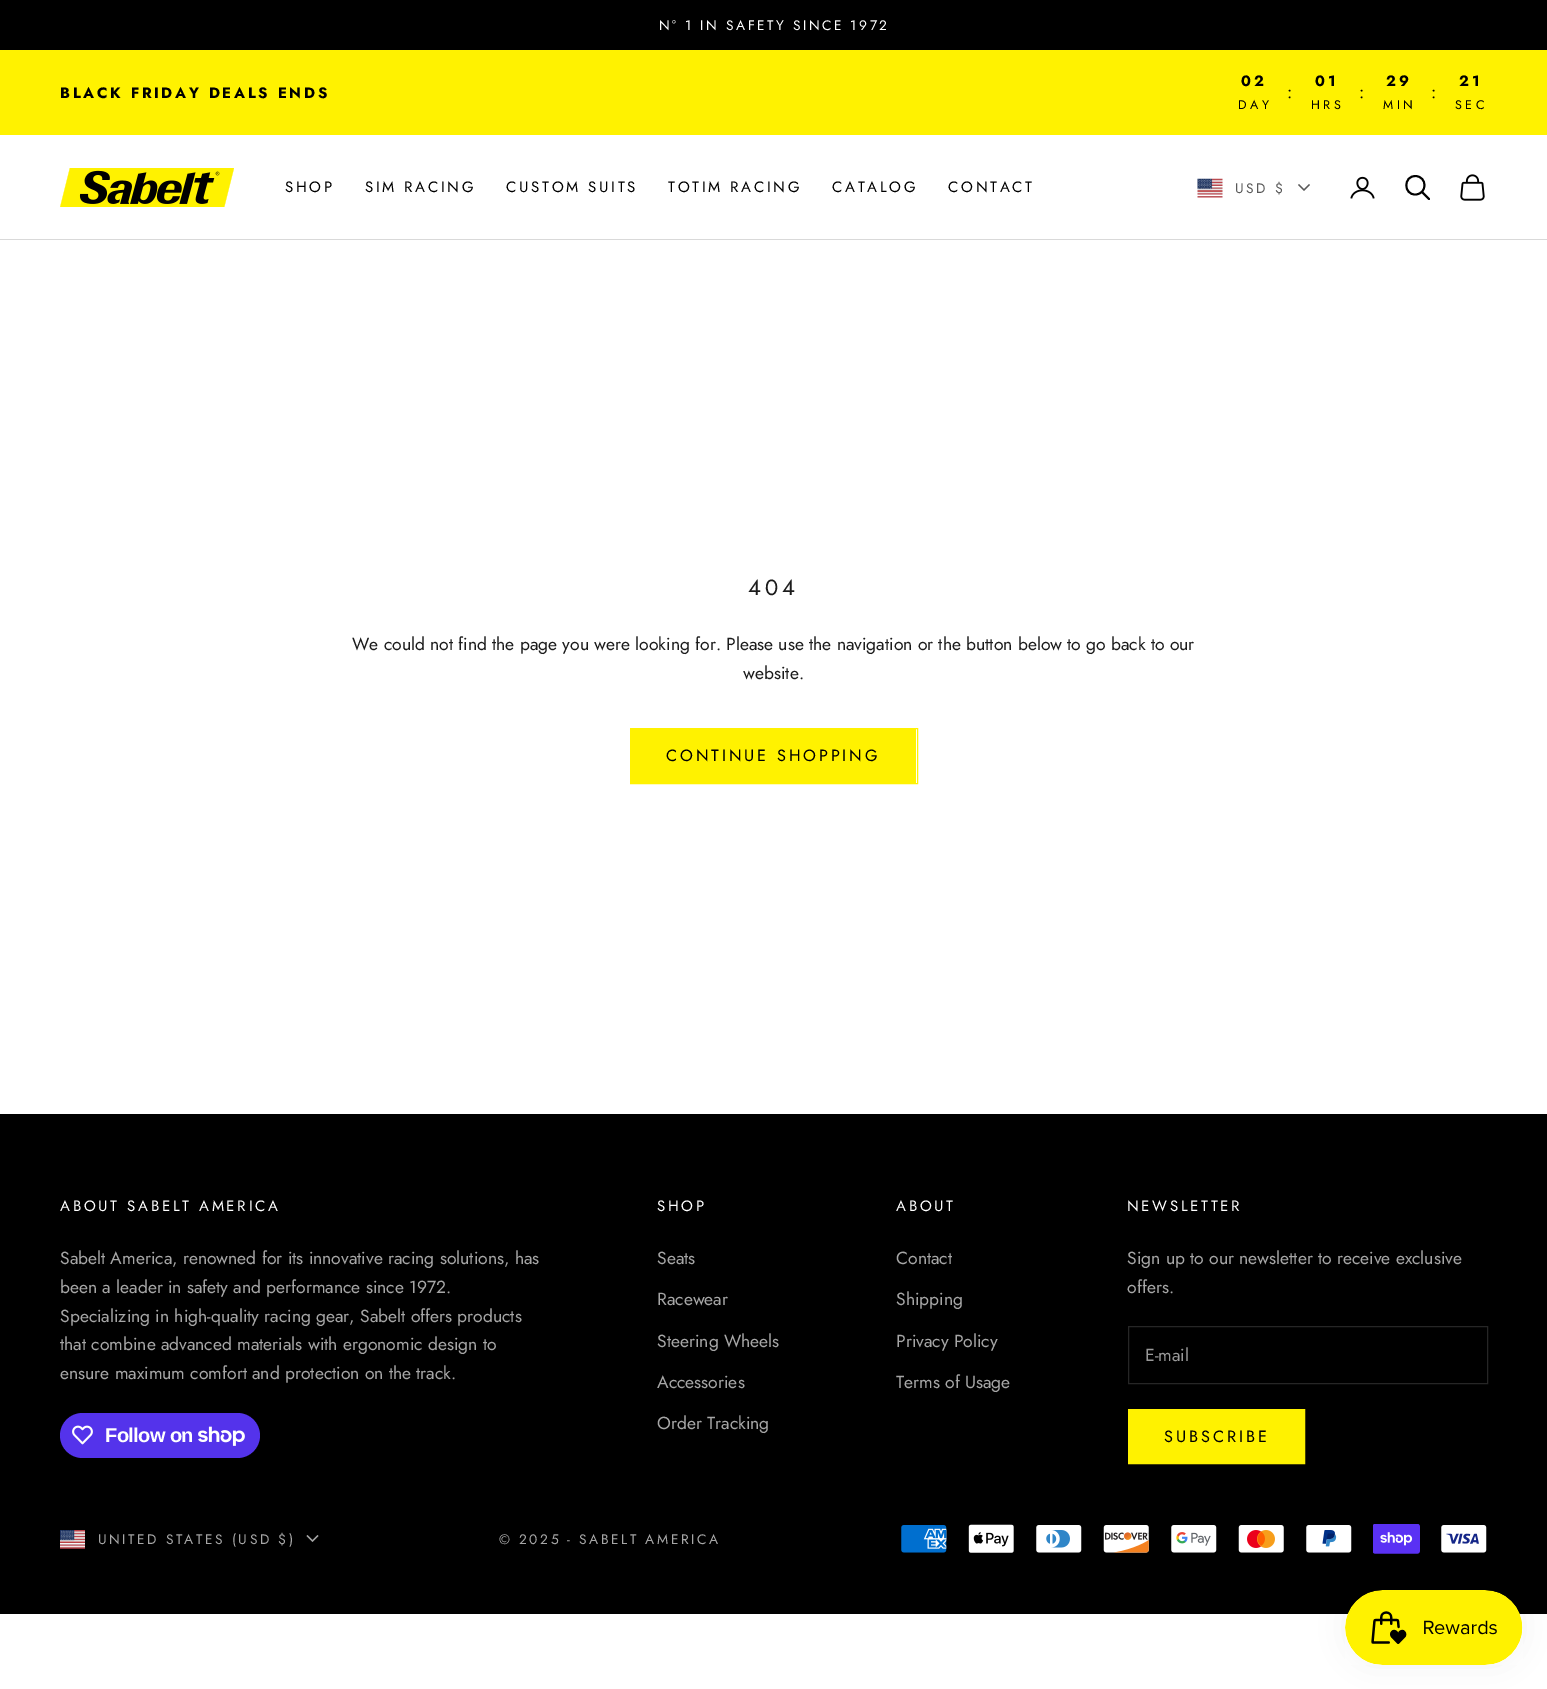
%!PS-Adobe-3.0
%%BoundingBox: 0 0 1547 1689
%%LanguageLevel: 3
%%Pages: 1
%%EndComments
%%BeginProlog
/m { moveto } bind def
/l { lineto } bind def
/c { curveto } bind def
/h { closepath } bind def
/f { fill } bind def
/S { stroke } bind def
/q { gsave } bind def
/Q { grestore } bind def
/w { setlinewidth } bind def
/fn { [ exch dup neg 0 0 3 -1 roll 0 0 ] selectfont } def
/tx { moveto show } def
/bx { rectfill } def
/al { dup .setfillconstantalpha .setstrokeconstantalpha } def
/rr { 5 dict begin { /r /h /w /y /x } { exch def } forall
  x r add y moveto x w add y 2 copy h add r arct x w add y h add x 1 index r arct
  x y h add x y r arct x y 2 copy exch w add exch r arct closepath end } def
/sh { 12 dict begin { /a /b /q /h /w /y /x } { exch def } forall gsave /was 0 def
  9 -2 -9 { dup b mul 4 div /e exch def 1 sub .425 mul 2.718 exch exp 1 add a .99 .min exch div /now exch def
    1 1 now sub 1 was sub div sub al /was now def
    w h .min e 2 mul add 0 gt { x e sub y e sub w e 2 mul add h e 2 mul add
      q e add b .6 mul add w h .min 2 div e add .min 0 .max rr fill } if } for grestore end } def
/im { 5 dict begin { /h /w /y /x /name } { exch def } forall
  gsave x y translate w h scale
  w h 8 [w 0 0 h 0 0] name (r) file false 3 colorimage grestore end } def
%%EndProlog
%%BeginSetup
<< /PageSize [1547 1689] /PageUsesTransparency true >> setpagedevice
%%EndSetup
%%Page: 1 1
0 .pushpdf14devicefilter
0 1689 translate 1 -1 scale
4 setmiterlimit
1 setgray
0 0 1547 1689 bx
0 setgray
0 0 1547 50 bx
/Jost-Regular 13.75 fn
1 setgray
659 30 m 2.5 0 (N° 1 IN SAFETY SINCE 1972) ashow
1 0.949 0 setrgbcolor
0 50 1547 85 bx
/Jost-Bold 15 fn
0 setgray
60 98 m 2.7 0 (BLACK FRIDAY DEALS ENDS) ashow
1241 86 m 3.5 0 (02) ashow
/Jost-Regular 12.5 fn
1238 109 m 3.5 0 (DAY) ashow
/Jost-Regular 17.5 fn
1287 98 m 3.5 0 (:) ashow
/Jost-Bold 15 fn
1315 86 m 3.5 0 (01) ashow
/Jost-Regular 12.5 fn
1311 109 m 3.5 0 (HRS) ashow
/Jost-Regular 17.5 fn
1359 98 m 3.5 0 (:) ashow
/Jost-Bold 15 fn
1386 86 m 3.5 0 (29) ashow
/Jost-Regular 12.5 fn
1383 109 m 3.5 0 (MIN) ashow
/Jost-Regular 17.5 fn
1431 98 m 3.5 0 (:) ashow
/Jost-Bold 15 fn
1459 86 m 3.5 0 (21) ashow
/Jost-Regular 12.5 fn
1455 109 m 3.5 0 (SEC) ashow
0.851 setgray
0 239 1547 1 bx
(image0.raw) 60 168 174 39 im
/Jost-Regular 15 fn
0 setgray
285 192 m 2.7 0 (SHOP) ashow
365 192 m 2.7 0 (SIM RACING) ashow
506 192 m 2.7 0 (CUSTOM SUITS) ashow
668 192 m 2.7 0 (TOTIM RACING) ashow
832 192 m 2.7 0 (CATALOG) ashow
948 192 m 2.7 0 (CONTACT) ashow
(image1.raw) 1197 178 26 20 im
/Jost-Regular 13.75 fn
0.349 setgray
1235 193 m 2.5 0 (USD $) ashow
1.2 w
2 setlinecap
1299 185 m 1304 190 l 1309 185 l S
(image2.raw) 1350 176 25 23 im
0 setgray
1.9 w
0 setlinecap
1415.5 176 m 1403 176 1403.5 195 1415.5 194.5 c 1427.5 194 1427.5 176.5 1415.5 176 c h S
1 setlinecap
1422.5 192.5 m 1429 199 l S
(image3.raw) 1460 174 25 27 im
/Jost-Regular 22 fn
0.11 setgray
748 595 m 4 0 (404) ashow
/Jost-Regular 17.5 fn
(We could not find the page you were looking for. Please use the navigation or the button below to go back to our) 352 650 tx
(website.) 743 679 tx
1 0.949 0 setrgbcolor
631 729 285 54 bx
1 w
0 setlinecap
630.5 728.5 287 55 rectstroke
/Jost-Regular 16.25 fn
0 setgray
666 761 m 2.9 0 (CONTINUE SHOPPING) ashow
0 1114 1547 500 bx
/Jost-Regular 15 fn
1 setgray
60 1211 m 2.7 0 (ABOUT SABELT AMERICA) ashow
/Jost-Regular 17.5 fn
0.651 setgray
(Sabelt America, renowned for its innovative racing solutions, has) 60 1264 tx
(been a leader in safety and performance since 1972.) 60 1293 tx
(Specializing in high-quality racing gear, Sabelt offers products) 60 1322 tx
(that combine advanced materials with ergonomic design to) 60 1350 tx
(ensure maximum comfort and protection on the track.) 60 1379 tx
0.329 0.2 0.922 setrgbcolor
60 1413 200 45 22.5 rr f
(image4.raw) 72 1425 21 20 im
/LiberationSans-Bold 20 fn
1 setgray
105 1442 m -0.6 0 (Follow on) ashow
(image5.raw) 198 1426 47 20 im
/Jost-Regular 15 fn
657 1211 m 2.7 0 (SHOP) ashow
/Jost-Regular 17.5 fn
0.651 setgray
(Seats) 657 1264 tx
(Racewear) 657 1305 tx
(Steering Wheels) 657 1347 tx
(Accessories) 657 1388 tx
(Order Tracking) 657 1429 tx
/Jost-Regular 15 fn
1 setgray
896 1211 m 2.7 0 (ABOUT) ashow
/Jost-Regular 17.5 fn
0.651 setgray
(Contact) 896 1264 tx
(Shipping) 896 1305 tx
(Privacy Policy) 896 1347 tx
(Terms of Usage) 896 1388 tx
/Jost-Regular 15 fn
1 setgray
1127 1211 m 2.7 0 (NEWSLETTER) ashow
/Jost-Regular 17.5 fn
0.651 setgray
(Sign up to our newsletter to receive exclusive) 1127 1264 tx
(offers.) 1127 1293 tx
0.149 setgray
1128.5 1326.5 359 57 rectstroke
0.6 setgray
(E-mail) 1145 1361 tx
1 0.949 0 setrgbcolor
1128.5 1409.5 m 1304.5 1409.5 l 1304.5 1463.5 l 1128.5 1463.5 l h q f Q
S
/Jost-Regular 16.25 fn
0 setgray
1164 1442 m 2.9 0 (SUBSCRIBE) ashow
(image6.raw) 60 1530 25 19 im
/Jost-Regular 13.75 fn
0.651 setgray
98 1544 m 2.5 0 (UNITED STATES \(USD $\)) ashow
1.2 w
2 setlinecap
307.5 1536 m 312.5 1541 l 317.5 1536 l S
499 1544 m 2.5 0 (© 2025 - SABELT AMERICA) ashow
(image7.raw) 901 1525 46 28 im
(image8.raw) 968 1524 46 29 im
(image9.raw) 1036 1525 46 28 im
(image10.raw) 1103 1525 46 28 im
(image11.raw) 1171 1525 46 28 im
(image12.raw) 1238 1525 46 28 im
(image13.raw) 1306 1525 46 28 im
(image14.raw) 1373 1524 47 30 im
(image15.raw) 1441 1525 46 28 im
0 setgray
1345 1590 178 75 37.5 15.5 0.05 sh
(image16.raw) 1345 1590 178 75 im
.poppdf14devicefilter showpage
%%EOF
